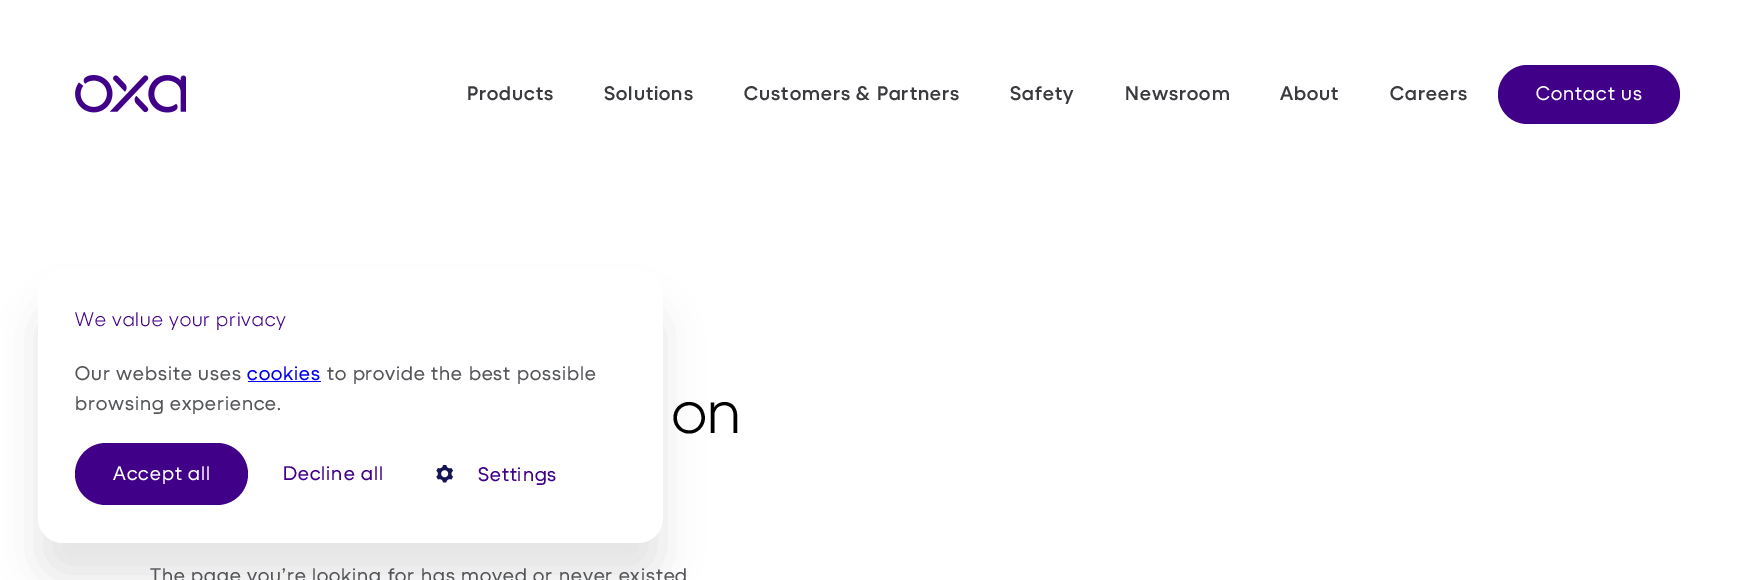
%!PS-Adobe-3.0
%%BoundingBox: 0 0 1754 580
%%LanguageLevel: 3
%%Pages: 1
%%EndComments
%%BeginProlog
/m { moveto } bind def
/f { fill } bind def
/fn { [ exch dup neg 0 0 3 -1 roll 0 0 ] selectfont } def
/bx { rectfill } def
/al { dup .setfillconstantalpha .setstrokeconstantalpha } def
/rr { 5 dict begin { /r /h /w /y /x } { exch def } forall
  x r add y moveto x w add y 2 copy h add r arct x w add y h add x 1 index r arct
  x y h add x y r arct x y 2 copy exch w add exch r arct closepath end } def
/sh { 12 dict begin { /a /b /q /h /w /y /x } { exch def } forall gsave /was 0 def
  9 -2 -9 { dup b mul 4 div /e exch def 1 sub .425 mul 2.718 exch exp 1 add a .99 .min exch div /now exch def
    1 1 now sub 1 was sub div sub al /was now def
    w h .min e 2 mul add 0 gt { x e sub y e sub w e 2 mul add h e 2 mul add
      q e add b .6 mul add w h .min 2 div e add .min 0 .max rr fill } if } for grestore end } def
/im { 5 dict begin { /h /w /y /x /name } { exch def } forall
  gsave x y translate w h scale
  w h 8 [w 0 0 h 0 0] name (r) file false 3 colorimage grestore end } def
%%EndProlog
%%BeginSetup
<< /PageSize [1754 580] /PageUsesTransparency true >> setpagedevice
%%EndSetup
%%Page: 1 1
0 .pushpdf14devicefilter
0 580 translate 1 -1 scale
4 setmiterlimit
1 setgray
0 0 1754 580 bx
(image0.raw) 75 75 111 38 im
/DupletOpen-SemiBold 20 fn
0.227 0.231 0.243 setrgbcolor
467 100 m 1 0 (Products) ashow
604 100 m 1 0 (Solutions) ashow
744 100 m 1 0 (Customers & Partners) ashow
1010 100 m 1 0 (Safety) ashow
1125 100 m 1 0 (Newsroom) ashow
1280 100 m 1 0 (About) ashow
1390 100 m 1 0 (Careers) ashow
0.255 0 0.533 setrgbcolor
1498 65 182 59 29.5 rr f
/DupletOpen-Regular 20 fn
1 setgray
1536 100 m 1 0 (Contact us) ashow
0 setgray
38 306 625 274 25 19 0.1 sh
1 setgray
38 269 625 274 25 rr f
/DupletOpen-Light 20 fn
0.255 0 0.533 setrgbcolor
75 326 m 1 0 (We value your privacy) ashow
/DupletOpen-Regular 20 fn
0.329 0.337 0.353 setrgbcolor
75 380 m 1 0 (Our website uses) ashow
0 0 0.933 setrgbcolor
247 380 m 1 0 (cookies) ashow
248 381 73 1 bx
0.329 0.337 0.353 setrgbcolor
327 380 m 1 0 (to provide the best possible) ashow
75 410 m 1 0 (browsing experience.) ashow
0.255 0 0.533 setrgbcolor
75 443 173 62 31 rr f
1 setgray
113 480 m 1 0 (Accept all) ashow
0.255 0 0.533 setrgbcolor
283 480 m 1 0 (Decline all) ashow
(image1.raw) 436 465 17 18 im
478 481 m 1 0 (Settings) ashow
/DupletOpen-Light 62 fn
0 setgray
672 433 m 1 0 (on) ashow
/DupletOpen-Regular 20 fn
0.329 0.337 0.353 setrgbcolor
150 582 m 1 0 (The page you’re looking for has moved or never existed) ashow
.poppdf14devicefilter showpage
%%EOF
